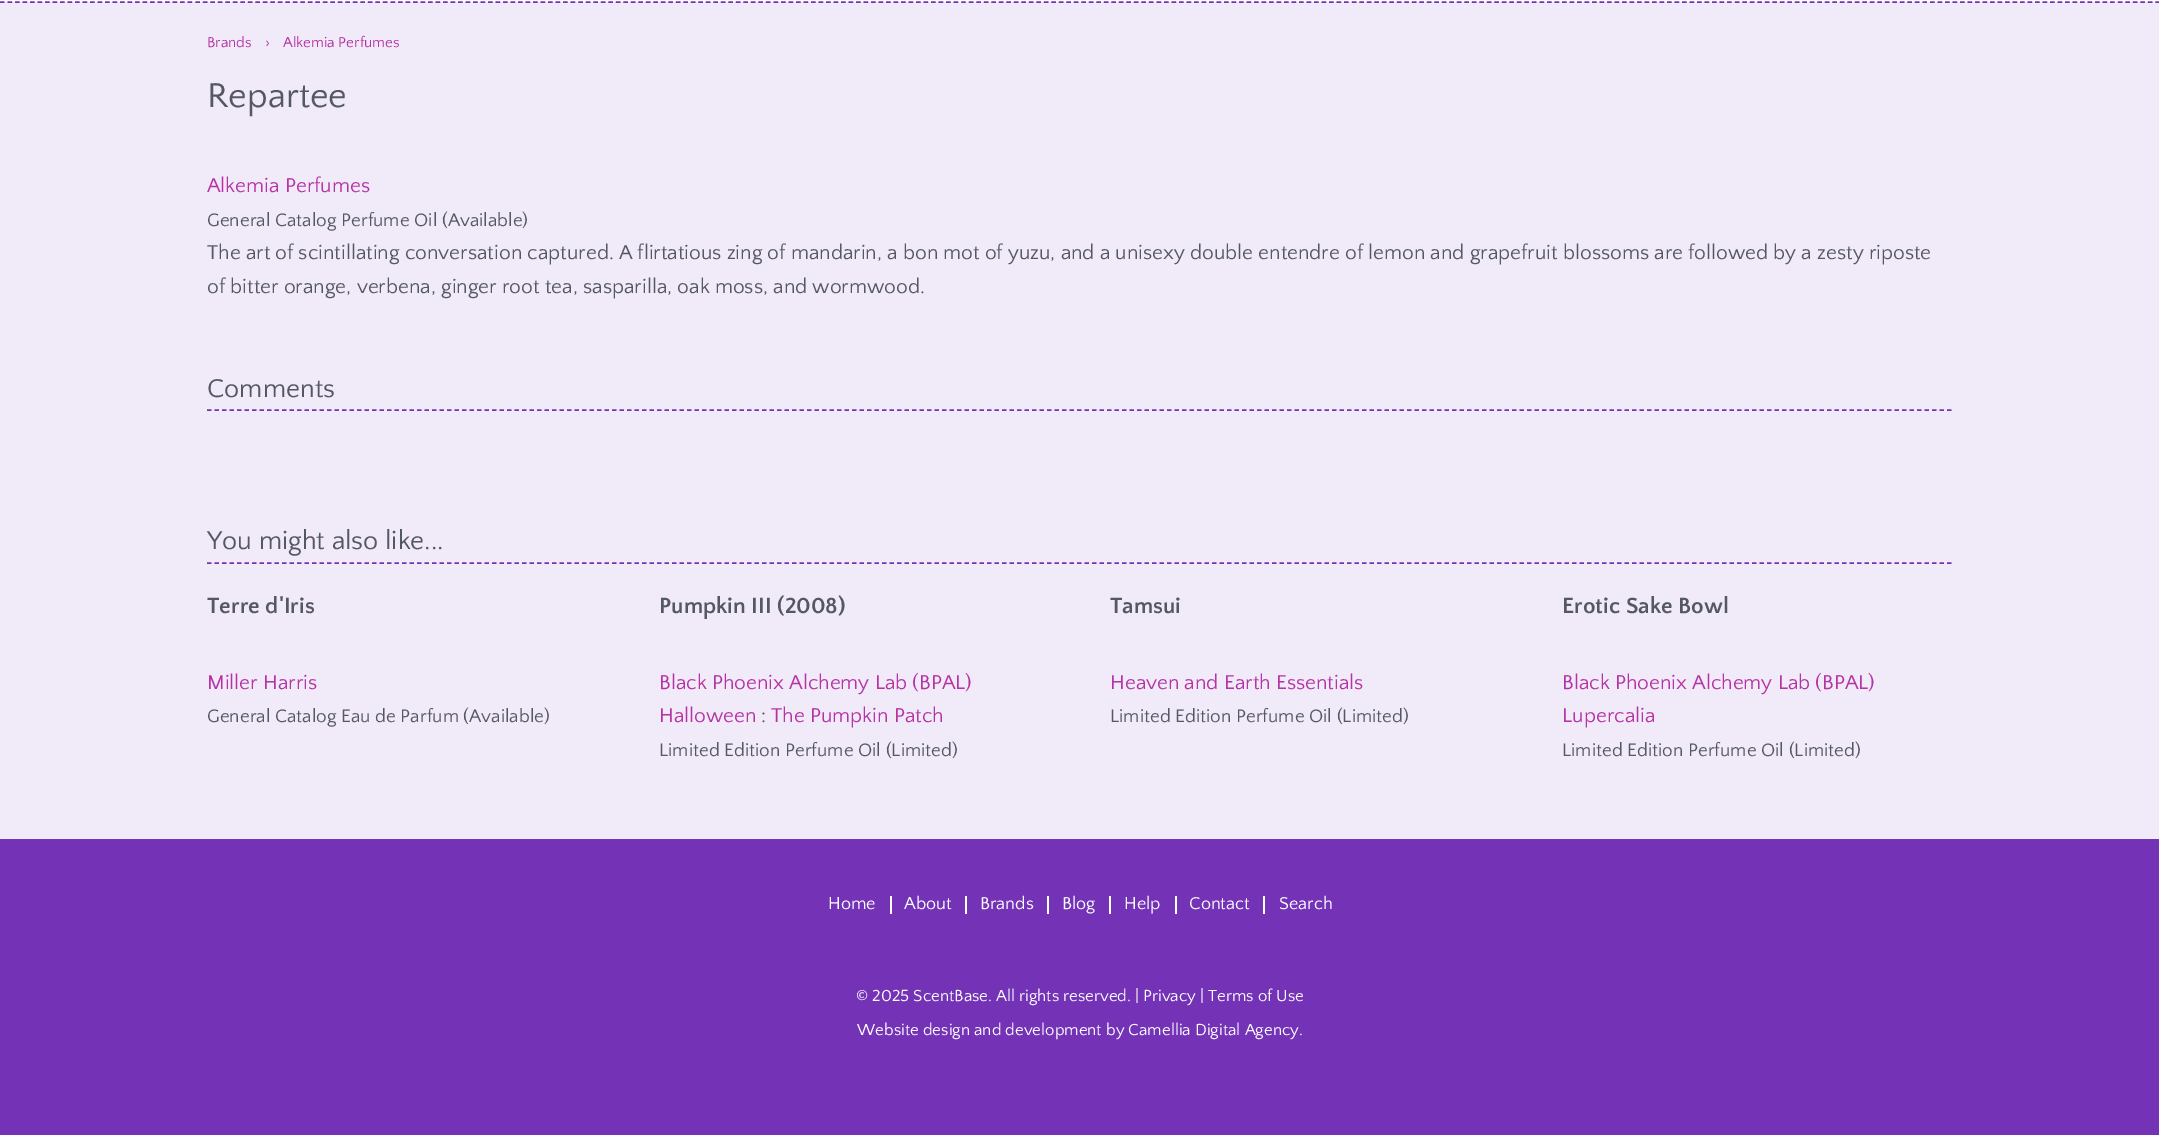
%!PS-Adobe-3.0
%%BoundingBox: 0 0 2159 1135
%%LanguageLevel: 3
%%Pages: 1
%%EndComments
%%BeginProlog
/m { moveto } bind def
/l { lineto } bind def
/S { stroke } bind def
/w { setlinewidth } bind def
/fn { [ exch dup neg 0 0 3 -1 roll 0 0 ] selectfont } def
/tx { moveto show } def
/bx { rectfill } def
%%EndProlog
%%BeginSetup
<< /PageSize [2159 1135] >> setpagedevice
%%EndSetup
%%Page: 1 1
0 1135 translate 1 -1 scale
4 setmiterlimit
0.455 0.2 0.714 setrgbcolor
0 0 2159 1135 bx
1 setgray
0 0 2159 2 bx
0.945 0.918 0.973 setrgbcolor
0 2 2159 837 bx
0.455 0.2 0.714 setrgbcolor
1.5 w
[4.5 3.01] 0 setdash
0 2 m 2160 2 l S
/QuattrocentoSans-Regular 15 fn
0.714 0.2 0.647 setrgbcolor
(Brands) 207 47 tx
(›) 265 47 tx
(Alkemia Perfumes) 283 47 tx
/QuattrocentoSans-Regular 36 fn
0.329 0.345 0.38 setrgbcolor
(Repartee) 207 107 tx
/QuattrocentoSans-Regular 21 fn
0.714 0.2 0.647 setrgbcolor
(Alkemia Perfumes) 207 192 tx
/QuattrocentoSans-Regular 18.9 fn
0.329 0.345 0.38 setrgbcolor
(General Catalog Perfume Oil \(Available\)) 207 226 tx
/QuattrocentoSans-Regular 21 fn
(The art of scintillating conversation captured. A flirtatious zing of mandarin, a bon mot of yuzu, and a unisexy double entendre of lemon and grapefruit blossoms are followed by a zesty riposte) 207 259 tx
(of bitter orange, verbena, ginger root tea, sasparilla, oak moss, and wormwood.) 207 293 tx
0.455 0.2 0.714 setrgbcolor
[4.5 3] 0 setdash
207 410 m 1953 410 l S
/QuattrocentoSans-Regular 27 fn
0.329 0.345 0.38 setrgbcolor
(Comments) 207 397 tx
0.455 0.2 0.714 setrgbcolor
207 563 m 1953 563 l S
0.329 0.345 0.38 setrgbcolor
(You might also like...) 207 549 tx
/QuattrocentoSans-Bold 23 fn
(Terre d'Iris) 207 613 tx
/QuattrocentoSans-Regular 21 fn
0.714 0.2 0.647 setrgbcolor
(Miller Harris) 207 689 tx
/QuattrocentoSans-Regular 18.9 fn
0.329 0.345 0.38 setrgbcolor
(General Catalog Eau de Parfum \(Available\)) 207 722 tx
/QuattrocentoSans-Bold 23 fn
(Pumpkin III \(2008\)) 659 613 tx
/QuattrocentoSans-Regular 21 fn
0.714 0.2 0.647 setrgbcolor
(Black Phoenix Alchemy Lab \(BPAL\)) 659 689 tx
(Halloween) 659 722 tx
0.329 0.345 0.38 setrgbcolor
(:) 761 722 tx
0.714 0.2 0.647 setrgbcolor
(The Pumpkin Patch) 771 722 tx
/QuattrocentoSans-Regular 18.9 fn
0.329 0.345 0.38 setrgbcolor
(Limited Edition Perfume Oil \(Limited\)) 659 756 tx
/QuattrocentoSans-Bold 23 fn
(Tamsui) 1110 613 tx
/QuattrocentoSans-Regular 21 fn
0.714 0.2 0.647 setrgbcolor
(Heaven and Earth Essentials) 1110 689 tx
/QuattrocentoSans-Regular 18.9 fn
0.329 0.345 0.38 setrgbcolor
(Limited Edition Perfume Oil \(Limited\)) 1110 722 tx
/QuattrocentoSans-Bold 23 fn
(Erotic Sake Bowl) 1562 613 tx
/QuattrocentoSans-Regular 21 fn
0.714 0.2 0.647 setrgbcolor
(Black Phoenix Alchemy Lab \(BPAL\)) 1562 689 tx
(Lupercalia) 1562 722 tx
/QuattrocentoSans-Regular 18.9 fn
0.329 0.345 0.38 setrgbcolor
(Limited Edition Perfume Oil \(Limited\)) 1562 756 tx
1 setgray
890 896 2 18 bx
/QuattrocentoSans-Regular 18 fn
(Home) 828 909 tx
965 896 2 18 bx
(About) 904 909 tx
1047 896 2 18 bx
(Brands) 980 909 tx
1109 896 2 18 bx
(Blog) 1062 909 tx
1175 896 2 18 bx
(Help) 1124 909 tx
1263 896 2 18 bx
(Contact) 1189 909 tx
(Search) 1279 909 tx
/QuattrocentoSans-Regular 16.8 fn
(© 2025 ScentBase. All rights reserved. |) 856 1001 tx
(Privacy | Terms of Use) 1143 1001 tx
(Website design and development by Camellia Digital Agency.) 857 1035 tx
showpage
%%EOF
